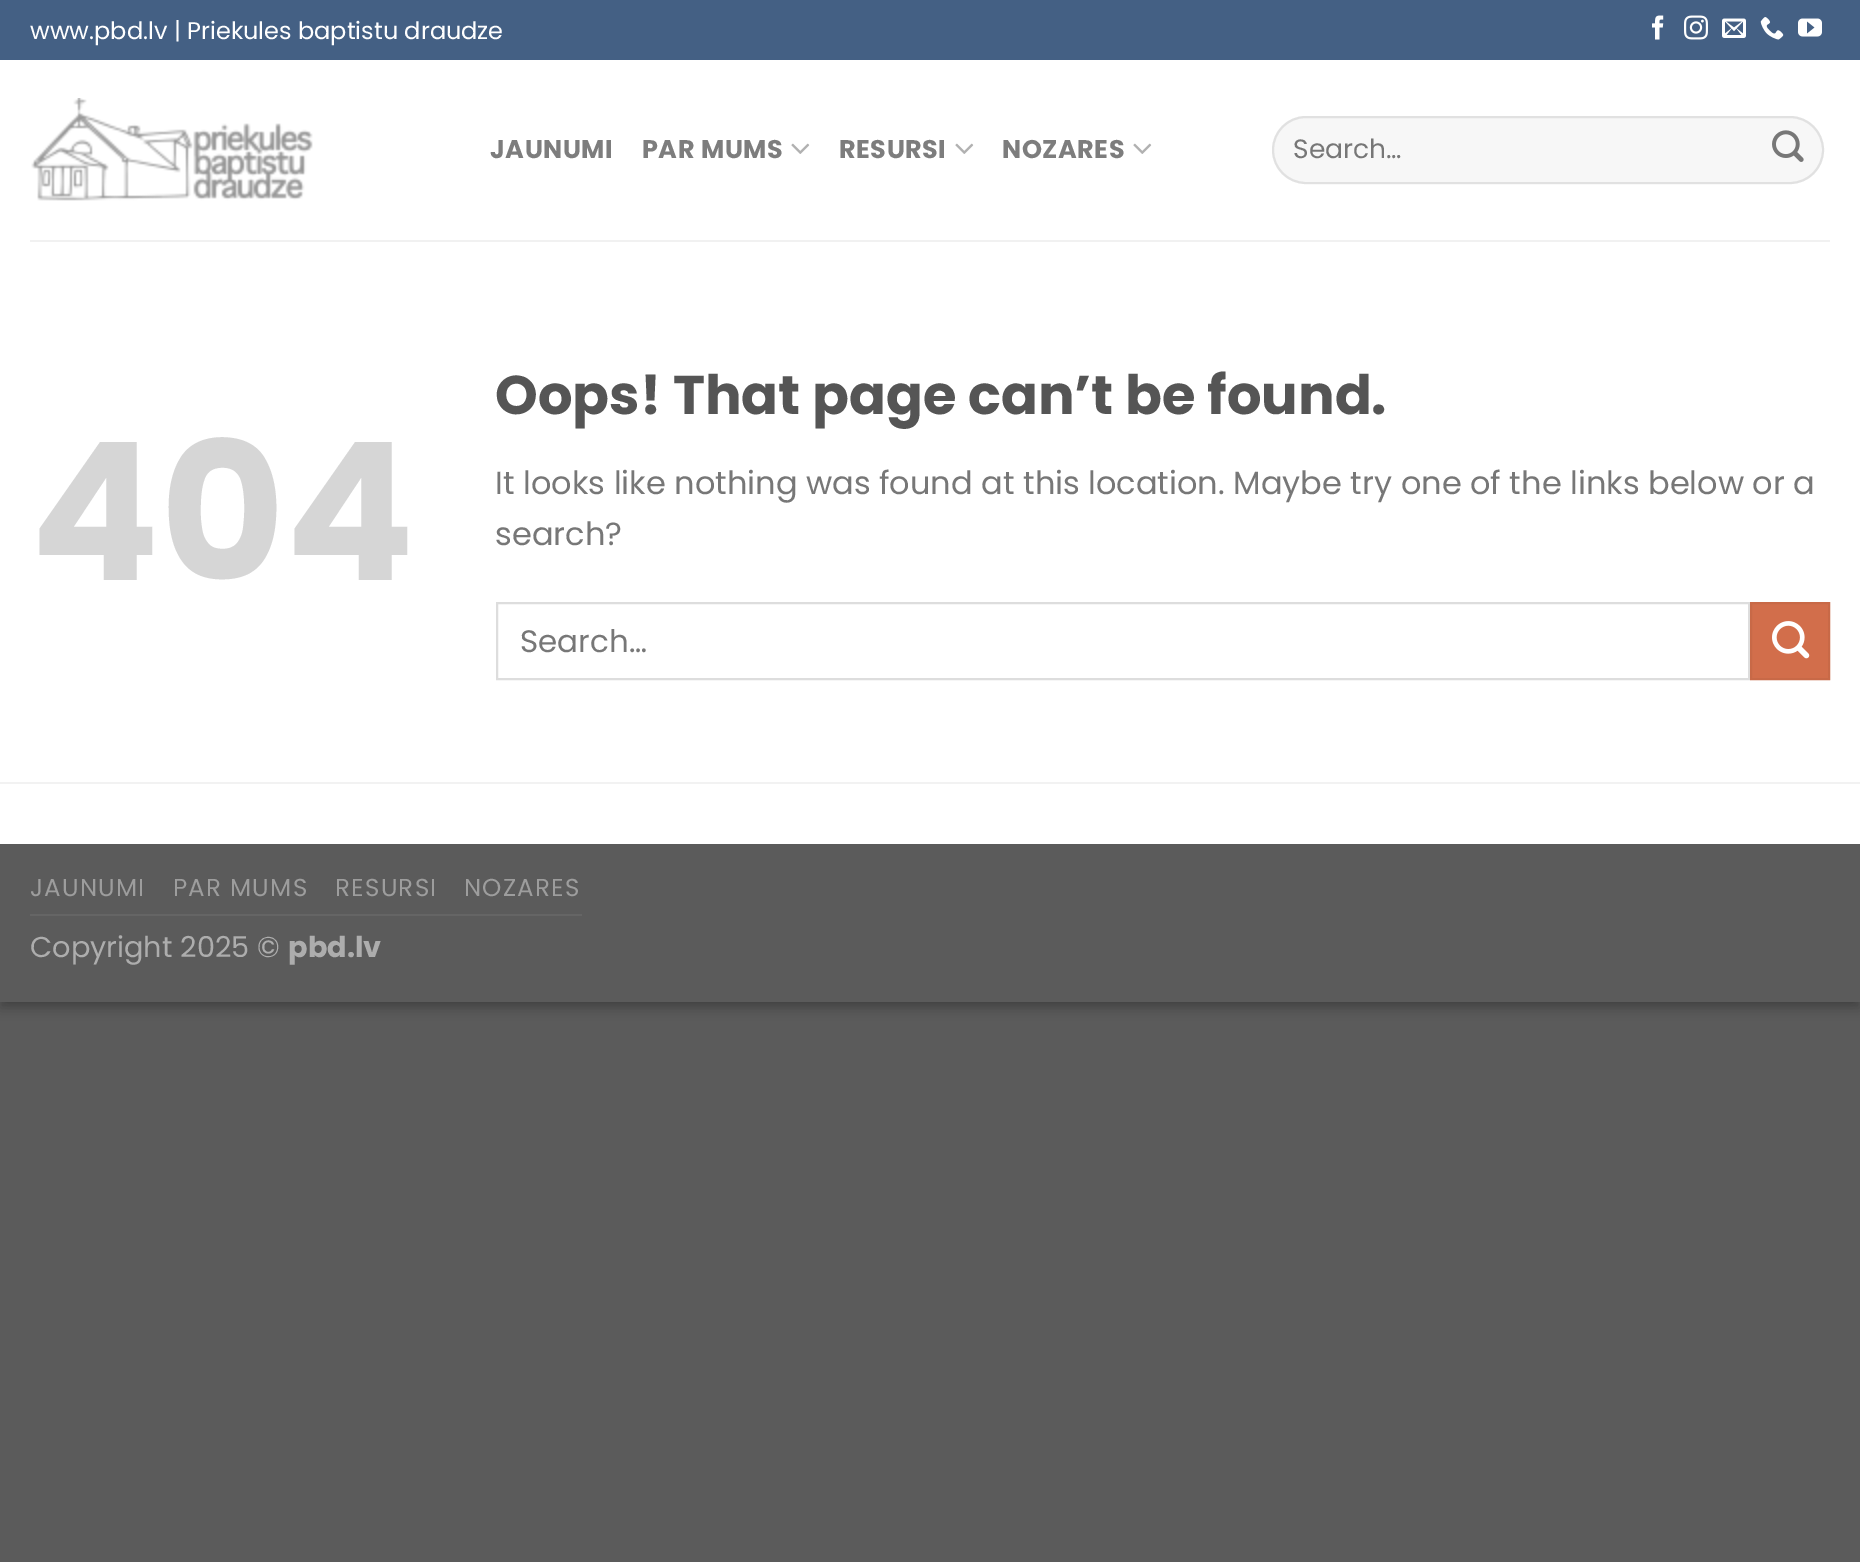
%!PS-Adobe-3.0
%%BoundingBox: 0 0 1860 1562
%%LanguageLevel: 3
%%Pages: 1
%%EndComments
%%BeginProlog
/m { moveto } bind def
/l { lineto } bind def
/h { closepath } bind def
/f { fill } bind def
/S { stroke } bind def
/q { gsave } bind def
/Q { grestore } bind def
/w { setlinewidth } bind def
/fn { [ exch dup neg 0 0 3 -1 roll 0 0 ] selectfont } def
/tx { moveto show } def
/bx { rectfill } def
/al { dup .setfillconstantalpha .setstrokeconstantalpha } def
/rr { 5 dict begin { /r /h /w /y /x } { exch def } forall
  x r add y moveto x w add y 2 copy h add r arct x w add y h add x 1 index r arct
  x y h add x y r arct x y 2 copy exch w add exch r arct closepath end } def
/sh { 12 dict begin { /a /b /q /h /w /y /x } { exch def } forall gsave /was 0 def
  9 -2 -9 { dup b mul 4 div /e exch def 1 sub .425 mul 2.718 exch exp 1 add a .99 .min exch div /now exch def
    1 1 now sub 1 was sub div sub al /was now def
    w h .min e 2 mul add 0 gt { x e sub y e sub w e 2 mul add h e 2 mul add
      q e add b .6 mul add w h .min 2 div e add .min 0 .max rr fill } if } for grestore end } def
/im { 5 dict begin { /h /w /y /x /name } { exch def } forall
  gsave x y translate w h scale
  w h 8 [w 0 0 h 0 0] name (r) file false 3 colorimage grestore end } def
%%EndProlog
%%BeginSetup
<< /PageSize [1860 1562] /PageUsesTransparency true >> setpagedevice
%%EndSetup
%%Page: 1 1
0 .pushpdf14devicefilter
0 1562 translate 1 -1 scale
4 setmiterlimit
0.357 setgray
0 0 1860 1562 bx
0 setgray
0 6 1860 1002 0 6 0.23 sh
8 14 1844 986 0 6 0.16 sh
1 setgray
0 60 1860 784 bx
0.267 0.376 0.518 setrgbcolor
0 0 1860 60 bx
/Poppins-Regular 24 fn
1 setgray
(www.pbd.lv | Priekules baptistu draudze) 30 39 tx
(image0.raw) 1652 15 12 25 im
(image1.raw) 1684 15 24 25 im
(image2.raw) 1722 18 24 20 im
(image3.raw) 1760 17 24 23 im
(image4.raw) 1798 18 24 19 im
(image5.raw) 31 98 282 103 im
/Poppins-Bold 25.5 fn
0.49 setgray
490 158 m 0.5 0 (JAUNUMI) ashow
642 158 m 0.5 0 (PAR MUMS) ashow
(image6.raw) 791 143 19 11 im
839 158 m 0.5 0 (RESURSI) ashow
(image6.raw) 955 143 19 11 im
1002 158 m 0.5 0 (NOZARES) ashow
(image6.raw) 1133 143 19 11 im
0.969 setgray
1272 116 552 68 34 rr f
0.09 al
0 setgray
2 w
1273 117 550 66 33 rr S
/Poppins-Regular 26.5 fn
1 al
0.467 setgray
(Search…) 1293 158 tx
(image7.raw) 1772 130 32 32 im
0.945 setgray
30 240 1800 2 bx
/Poppins-Bold 192 fn
0.839 setgray
(404) 30 580 tx
/Poppins-Bold 54.4 fn
0.333 setgray
(Oops! That page can’t be found.) 495 414 tx
/Poppins-Regular 32 fn
0.467 setgray
(It looks like nothing was found at this location. Maybe try one of the links below or a) 495 494 tx
(search?) 495 545 tx
0.867 setgray
497 603 1252 76 rectstroke
/Poppins-Regular 31 fn
0.467 setgray
(Search…) 520 652 tx
0.824 0.431 0.294 setrgbcolor
1751 603 m 1829 603 l 1829 679 l 1751 679 l h q f Q
0.784 0.412 0.278 setrgbcolor
S
(image8.raw) 1772 621 38 38 im
0.949 setgray
0 782 1860 2 bx
0.357 setgray
0 844 1860 158 bx
0.396 setgray
30 914 552 2 bx
/Poppins-Regular 24.5 fn
0.616 setgray
30 896 m 1.25 0 (JAUNUMI) ashow
173 896 m 1.25 0 (PAR MUMS) ashow
335 896 m 1.25 0 (RESURSI) ashow
464 896 m 1.25 0 (NOZARES) ashow
/Poppins-Regular 28.75 fn
0.678 setgray
(Copyright 2025 ©) 30 957 tx
/Poppins-Bold 28.75 fn
(pbd.lv) 288 957 tx
.poppdf14devicefilter showpage
%%EOF
